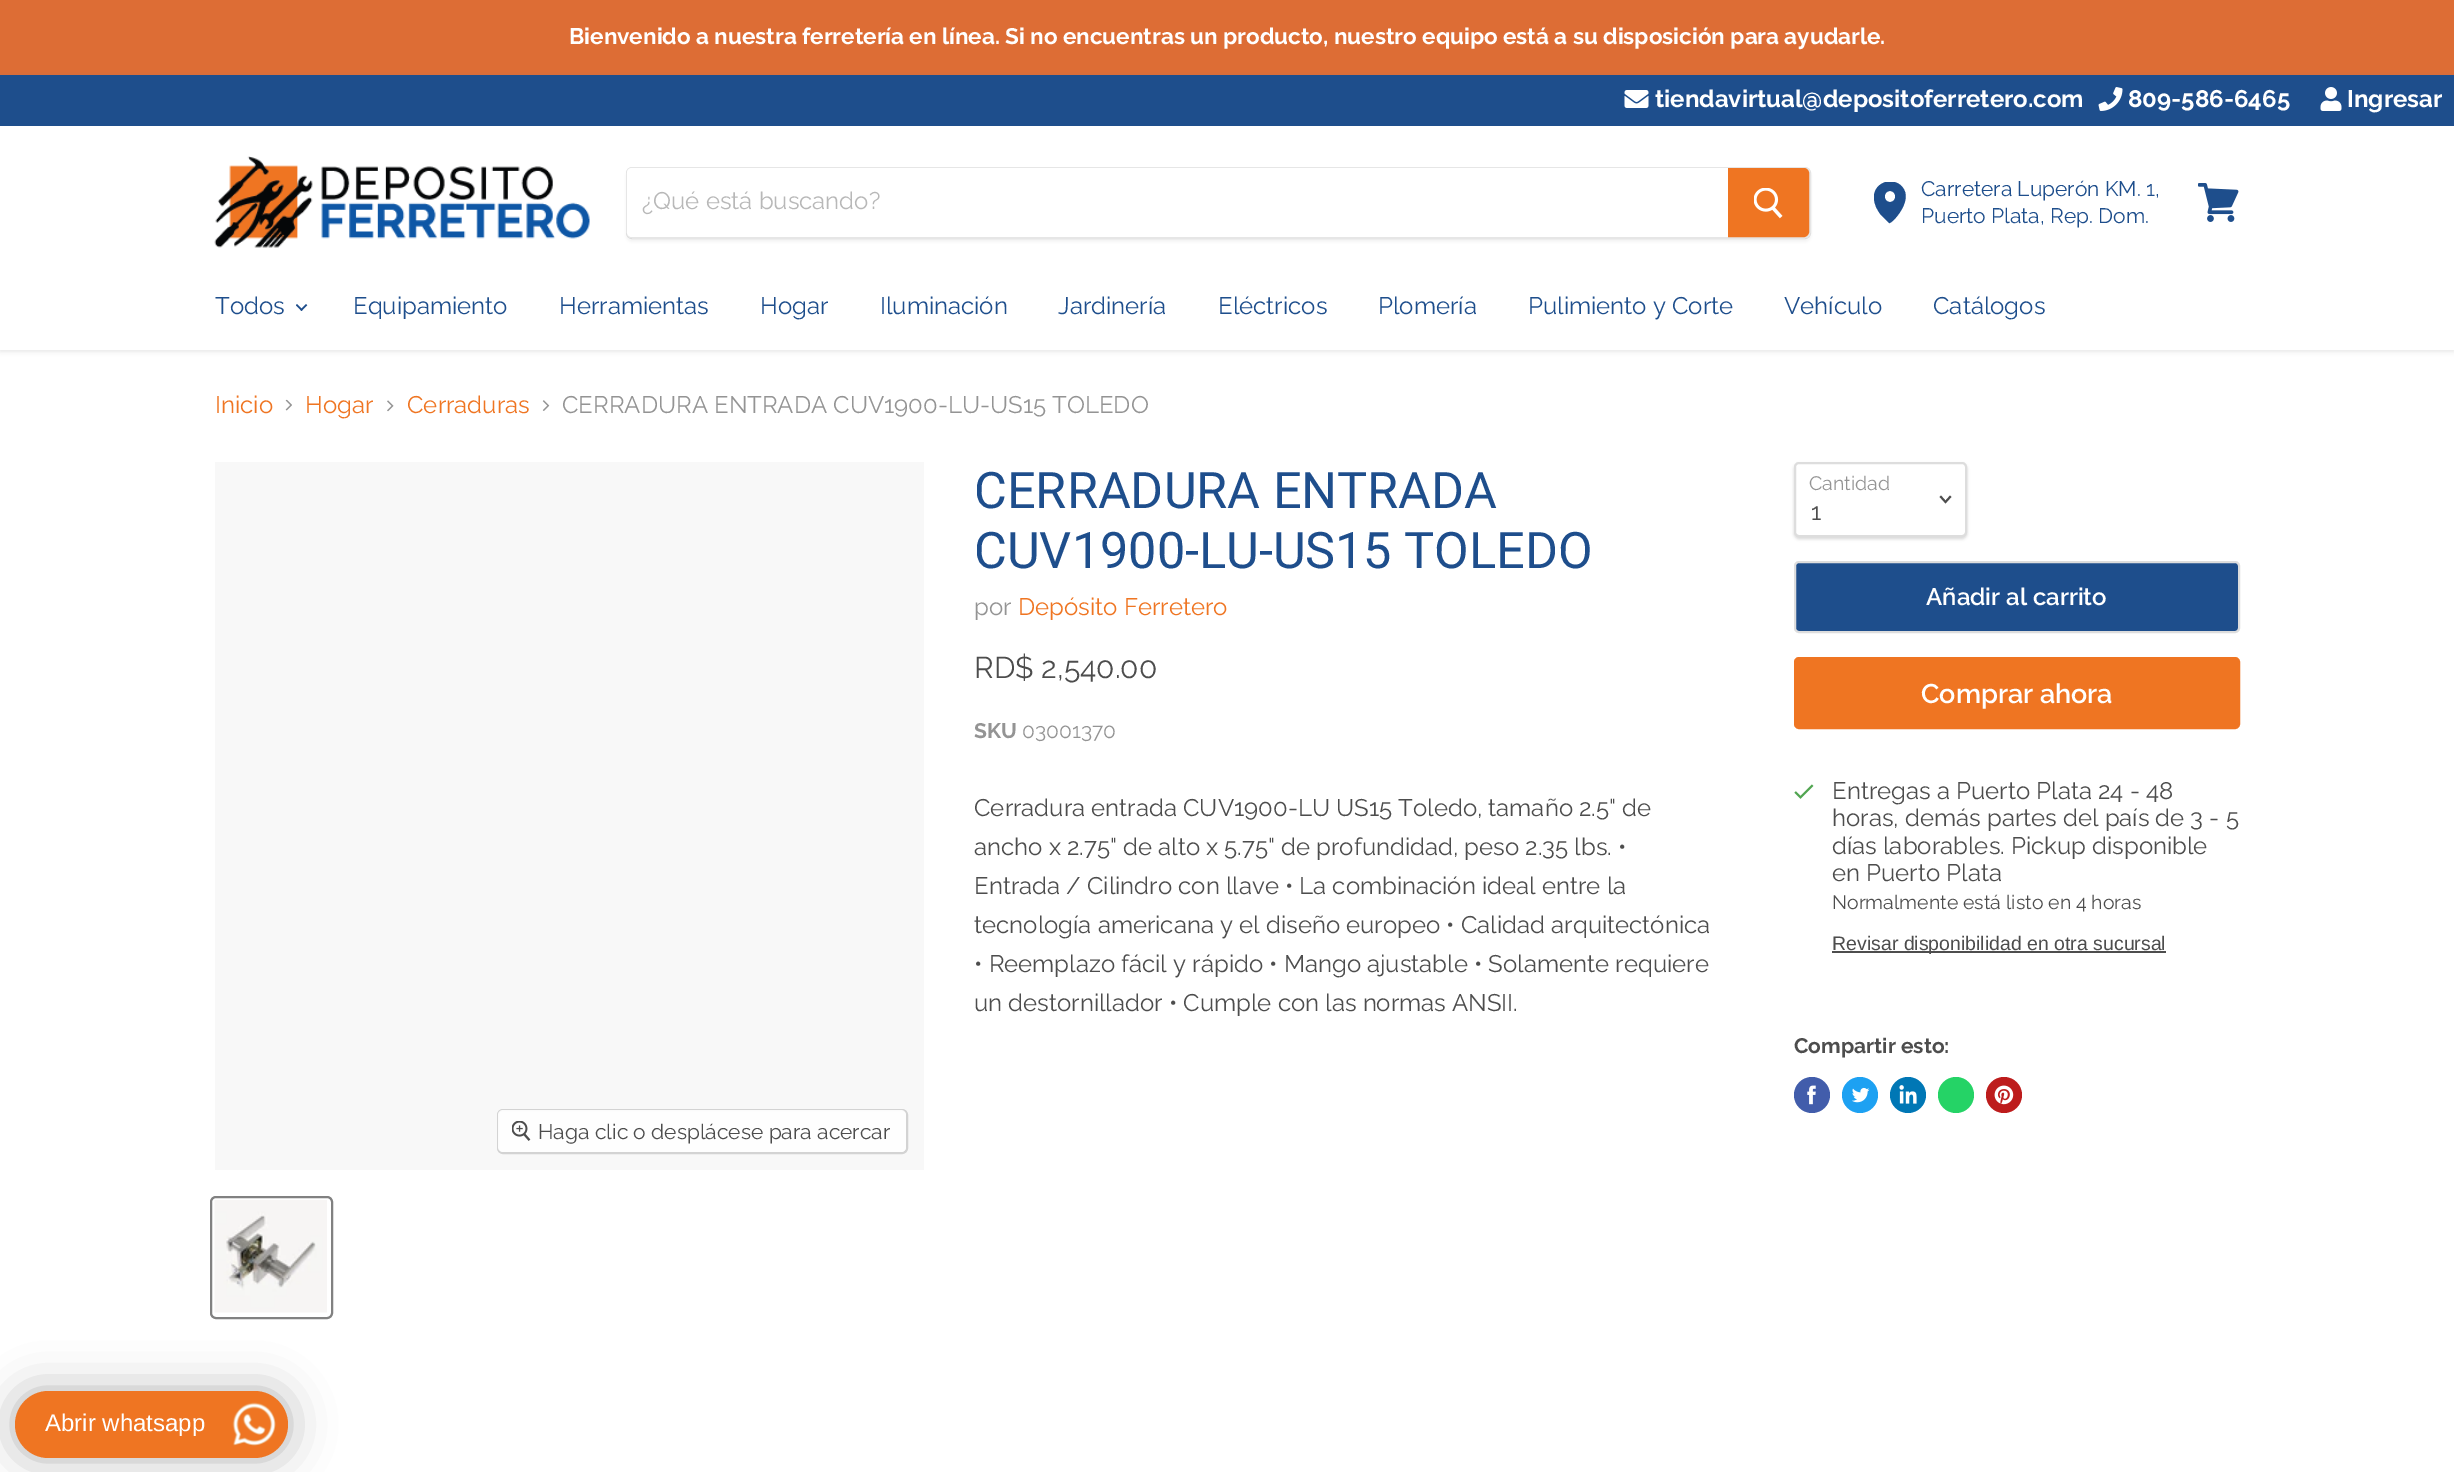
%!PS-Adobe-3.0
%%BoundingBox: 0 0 2454 1472
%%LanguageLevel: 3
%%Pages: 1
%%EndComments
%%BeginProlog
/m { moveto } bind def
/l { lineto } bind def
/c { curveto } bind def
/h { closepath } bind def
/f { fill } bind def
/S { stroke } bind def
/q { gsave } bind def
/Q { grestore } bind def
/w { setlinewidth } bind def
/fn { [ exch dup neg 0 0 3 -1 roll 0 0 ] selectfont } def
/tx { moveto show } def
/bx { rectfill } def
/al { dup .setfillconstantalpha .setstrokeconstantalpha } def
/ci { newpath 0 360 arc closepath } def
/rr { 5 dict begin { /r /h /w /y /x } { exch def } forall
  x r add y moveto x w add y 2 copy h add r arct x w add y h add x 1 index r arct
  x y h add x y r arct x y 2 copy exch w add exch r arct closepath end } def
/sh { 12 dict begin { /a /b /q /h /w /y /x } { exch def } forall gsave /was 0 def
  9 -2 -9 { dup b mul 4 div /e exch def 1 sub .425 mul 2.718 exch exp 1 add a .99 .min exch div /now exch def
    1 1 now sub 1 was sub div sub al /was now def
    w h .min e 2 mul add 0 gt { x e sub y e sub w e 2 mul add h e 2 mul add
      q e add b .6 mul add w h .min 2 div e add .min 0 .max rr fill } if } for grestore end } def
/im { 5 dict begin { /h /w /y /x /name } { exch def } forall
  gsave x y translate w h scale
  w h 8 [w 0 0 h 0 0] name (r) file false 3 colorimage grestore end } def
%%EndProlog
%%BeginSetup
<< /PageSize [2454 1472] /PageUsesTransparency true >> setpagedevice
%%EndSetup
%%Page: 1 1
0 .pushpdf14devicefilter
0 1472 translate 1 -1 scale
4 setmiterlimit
1 setgray
0 0 2454 1472 bx
0.867 0.427 0.208 setrgbcolor
0 0 2454 75 bx
/Raleway-Bold 22.5 fn
1 setgray
(Bienvenido a nuestra ferretería en línea. Si no encuentras un producto, nuestro equipo está a su disposición para ayudarle.) 569 44 tx
0.502 setgray
0 77 2454 274 0 3 0.25 sh
1 setgray
0 126 2454 224 bx
0.118 0.306 0.549 setrgbcolor
0 75 2454 51 bx
(image0.raw) 1624 90 25 18 im
/Raleway-Bold 24 fn
1 setgray
(tiendavirtual@depositoferretero.com) 1655 107 tx
(image1.raw) 2098 87 25 24 im
(809-586-6465) 2128 107 tx
(image2.raw) 2320 87 22 24 im
(Ingresar) 2347 107 tx
(image3.raw) 214 156 376 92 im
q
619 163 m 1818 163 l 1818 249 l 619 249 l h 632 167 m 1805 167 l 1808.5 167 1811 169.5 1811 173 c 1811 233 l 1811 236.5 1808.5 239 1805 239 c 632 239 l 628.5 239 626 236.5 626 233 c 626 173 l 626 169.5 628.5 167 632 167 c h eoclip newpath
0.502 setgray
626 170 1185 72 6 2 0.11 sh
Q
0.2 al
0.502 setgray
2 w
627 168 1183 70 5 rr S
1 al
1 setgray
632 168 m 1728 168 l 1728 237 l 632 237 l 629 237 627 235 627 232 c 627 173 l 627 170 629 168 632 168 c h f
/Raleway-Regular 24 fn
0.722 setgray
(¿Qué está buscando?) 642 209 tx
0.937 0.459 0.133 setrgbcolor
1729 169 m 1804 169 l 1806 169 1808 171 1808 173 c 1808 232 l 1808 234 1806 236 1804 236 c 1729 236 l h q f Q
S
(image4.raw) 1754 188 29 31 im
q
1874 182 33 42 rectclip
0.118 0.306 0.549 setrgbcolor
1889 223 m 1881 215 l 1877 210 1874 204 1874 198 c 1873 185 1888 177 1899 184 c 1918 197 1891 225 1889 223 c h 1890 191 m 1883 191 1883 202 1890 202 c 1897 202 1897 191 1890 191 c h eofill
Q
/Raleway-Regular 21 fn
0.118 0.306 0.549 setrgbcolor
(Carretera Luperón KM. 1,) 1921 196 tx
(Puerto Plata, Rep. Dom.) 1921 223 tx
(image5.raw) 2198 183 41 39 im
/Raleway-Regular 24 fn
(Todos) 215 314 tx
(image6.raw) 296 304 12 7 im
(Equipamiento) 353 314 tx
(Herramientas) 559 314 tx
(Hogar) 760 314 tx
(Iluminación) 880 314 tx
(Jardinería) 1058 314 tx
(Eléctricos) 1218 314 tx
(Plomería) 1378 314 tx
(Pulimiento y Corte) 1528 314 tx
(Vehículo) 1784 314 tx
(Catálogos) 1933 314 tx
0.937 0.459 0.133 setrgbcolor
(Inicio) 215 413 tx
(image7.raw) 285 399 7 12 im
(Hogar) 305 413 tx
(image8.raw) 387 400 7 12 im
(Cerraduras) 407 413 tx
(image9.raw) 542 400 8 11 im
0.58 setgray
(CERRADURA ENTRADA CUV1900-LU-US15 TOLEDO) 562 413 tx
/Roboto-Regular 50.4 fn
0.118 0.306 0.549 setrgbcolor
(CERRADURA ENTRADA) 974 508 tx
(CUV1900-LU-US15 TOLEDO) 974 568 tx
/Raleway-Regular 24 fn
0.58 setgray
(por) 974 615 tx
0.937 0.459 0.133 setrgbcolor
(Depósito Ferretero) 1018 615 tx
/Raleway-Regular 30 fn
0.302 setgray
(RD$ 2,540.00) 974 678 tx
/Raleway-Bold 21 fn
0.58 setgray
(SKU) 974 738 tx
/Raleway-Regular 21 fn
(03001370) 1022 738 tx
/Raleway-Regular 24 fn
0.302 setgray
(Cerradura entrada CUV1900-LU US15 Toledo, tamaño 2.5" de) 974 816 tx
(ancho x 2.75" de alto x 5.75" de profundidad, peso 2.35 lbs. •) 974 855 tx
(Entrada / Cilindro con llave • La combinación ideal entre la) 974 894 tx
(tecnología americana y el diseño europeo • Calidad arquitectónica) 974 933 tx
(• Reemplazo fácil y rápido • Mango ajustable • Solamente requiere) 974 972 tx
(un destornillador • Cumple con las normas ANSII.) 974 1011 tx
0 setgray
1794 464 173 75 5 1.5 0.15 sh
1 setgray
1795 463 171 73 4 rr q f Q
0.867 setgray
S
/Raleway-Regular 19.5 fn
0.58 setgray
(Cantidad) 1809 490 tx
0.302 setgray
1.9 w
2 setlinecap
1945.5 502 m 1950 497 l 1945.5 502 m 1941 497 l S
/Raleway-Regular 24 fn
(1) 1811 520 tx
0.118 0.306 0.549 setrgbcolor
1795 562 444 70 4 rr q f Q
0.867 setgray
2 w
0 setlinecap
S
/Raleway-SemiBold 24 fn
1 setgray
(Añadir al carrito) 1926 605 tx
0.937 0.459 0.133 setrgbcolor
1795 658 444 70 4 rr q f Q
S
/Raleway-SemiBold 27 fn
1 setgray
(Comprar ahora) 1921 703 tx
(image10.raw) 1794 784 20 15 im
/Raleway-Regular 24 fn
0.302 setgray
(Entregas a Puerto Plata 24 - 48) 1832 799 tx
(horas, demás partes del país de 3 - 5) 1832 826 tx
(días laborables. Pickup disponible) 1832 854 tx
(en Puerto Plata) 1832 881 tx
/Raleway-Regular 19.5 fn
(Normalmente está listo en 4 horas) 1832 909 tx
1832 951 334 2 bx
/LiberationSans-Regular 19.5 fn
(Revisar disponibilidad en otra sucursal) 1832 950 tx
/Raleway-Bold 21 fn
(Compartir esto:) 1794 1053 tx
0.259 0.365 0.671 setrgbcolor
1812 1095 18 ci f
(image11.raw) 1807 1085 9 20 im
0.114 0.631 0.949 setrgbcolor
1860 1095 18 ci f
(image12.raw) 1852 1087 18 16 im
0 0.467 0.71 setrgbcolor
1908 1095 18 ci f
(image13.raw) 1899 1085 18 19 im
0.145 0.827 0.4 setrgbcolor
1956 1095 18 ci f
0.741 0.11 0.11 setrgbcolor
2004 1095 18 ci f
(image14.raw) 1994 1085 20 20 im
0.973 setgray
215 462 709 708 bx
0.827 setgray
498 1110 409 43 5 rr S
0.9 al
1 setgray
498 1110 408 42 5 rr f
1 al
(image15.raw) 512 1121 19 20 im
/Raleway-Regular 21 fn
0.302 setgray
(Haga clic o desplácese para acercar) 538 1139 tx
0.506 setgray
211 1197 121 121 5 rr S
(image16.raw) 214 1200 113 113 im
0 setgray
15 1391 273 67 33.5 22.5 0.3 sh
0.937 0.459 0.133 setrgbcolor
15 1391 273 67 33.5 rr f
/LiberationSans-Regular 24 fn
1 setgray
(Abrir whatsapp) 45 1431 tx
(image17.raw) 232 1402 44 44 im
.poppdf14devicefilter showpage
%%EOF
